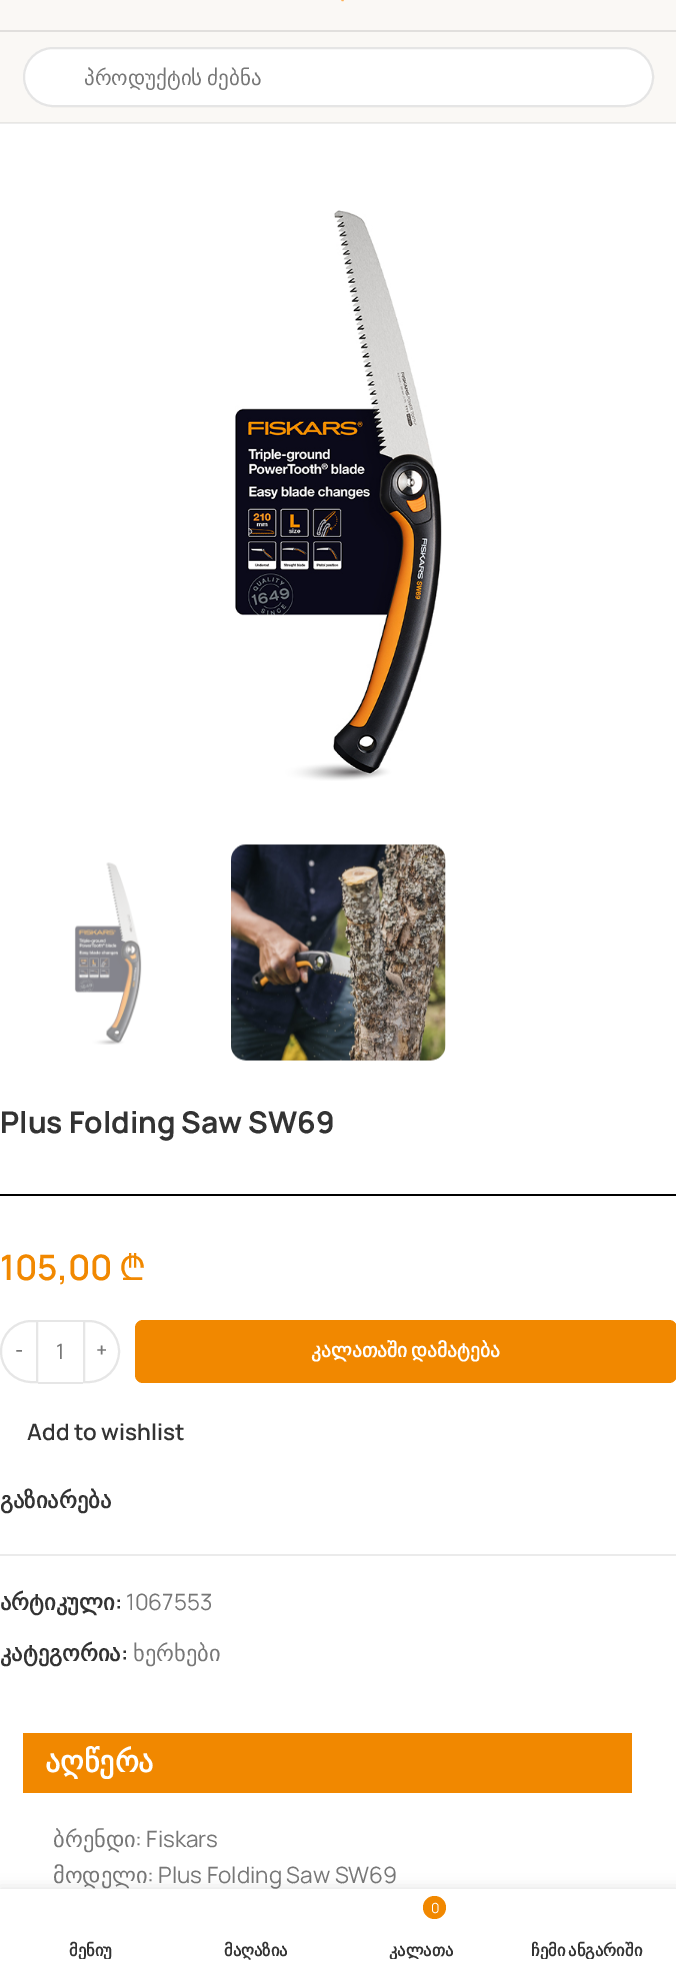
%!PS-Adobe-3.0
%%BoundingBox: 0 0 676 1971
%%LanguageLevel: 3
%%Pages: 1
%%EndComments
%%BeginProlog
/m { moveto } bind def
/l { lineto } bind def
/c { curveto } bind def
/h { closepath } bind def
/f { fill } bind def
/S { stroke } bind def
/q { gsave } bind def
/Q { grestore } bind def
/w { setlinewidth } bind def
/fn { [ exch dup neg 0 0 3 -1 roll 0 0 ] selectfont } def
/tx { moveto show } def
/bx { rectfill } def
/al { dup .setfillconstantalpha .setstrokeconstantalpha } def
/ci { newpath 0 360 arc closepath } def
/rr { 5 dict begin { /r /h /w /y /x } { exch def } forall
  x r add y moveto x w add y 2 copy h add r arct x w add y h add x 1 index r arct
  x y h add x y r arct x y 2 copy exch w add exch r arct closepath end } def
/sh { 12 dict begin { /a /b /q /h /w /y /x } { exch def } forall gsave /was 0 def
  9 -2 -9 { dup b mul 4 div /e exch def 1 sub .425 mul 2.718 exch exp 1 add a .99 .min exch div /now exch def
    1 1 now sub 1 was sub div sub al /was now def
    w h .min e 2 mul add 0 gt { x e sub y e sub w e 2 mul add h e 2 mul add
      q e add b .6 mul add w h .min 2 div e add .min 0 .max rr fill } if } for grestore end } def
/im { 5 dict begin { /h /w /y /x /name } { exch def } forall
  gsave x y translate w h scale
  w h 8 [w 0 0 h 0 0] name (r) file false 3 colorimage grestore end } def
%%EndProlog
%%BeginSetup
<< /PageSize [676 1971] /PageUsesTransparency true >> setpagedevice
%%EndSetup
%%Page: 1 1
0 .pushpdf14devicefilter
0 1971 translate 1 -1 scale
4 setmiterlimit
1 setgray
0 0 676 1971 bx
0.929 setgray
0 123 676 1 bx
0.98 0.973 0.961 setrgbcolor
0 0 676 30 bx
0.882 0.875 0.867 setrgbcolor
0 30 676 2 bx
(image0.raw) 341 0 3 2 im
0.98 0.973 0.961 setrgbcolor
0 32 676 90 bx
0.91 0.906 0.894 setrgbcolor
0 122 676 1 bx
1 setgray
23 47 631 60 30 rr f
0.1 al
0 setgray
2 w
24 48 629 58 29 rr S
/DejaVuSans-Regular 21 fn
1 al
0.467 setgray
84 85 m -2 0 32 (პროდუქტის ძებნა) widthshow
(image1.raw) 235 210 207 571 im
(image2.raw) 74 862 68 183 im
(image3.raw) 231 844 215 217 im
/Manrope-Bold 30 fn
0.2 setgray
(Plus Folding Saw SW69) 0 1133 tx
0 setgray
0 1194 676 2 bx
/Manrope-SemiBold 35 fn
0.945 0.533 0 setrgbcolor
(105,00) 0 1280 tx
/NotoSans-Regular 35 fn
(₾) 119 1280 tx
0.902 setgray
31.5 1321 m 37 1321 l 37 1382 l 31.5 1382 l 14.5 1382 1 1368.5 1 1351.5 c 1 1334.5 14.5 1321 31.5 1321 c h S
/Manrope-SemiBold 19.5 fn
0.467 setgray
(-) 15 1357 tx
0.902 setgray
38 1320 45 2 bx
38 1382 45 2 bx
/Manrope-Regular 21 fn
0.467 setgray
(1) 56 1359 tx
0.902 setgray
84 1321 m 88.5 1321 l 105.5 1321 119 1334.5 119 1351.5 c 119 1368.5 105.5 1382 88.5 1382 c 84 1382 l h S
/Manrope-SemiBold 19.5 fn
0.467 setgray
(+) 96 1357 tx
0.945 0.533 0 setrgbcolor
135 1320 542 63 8 rr f
/DejaVuSans-Bold 19.5 fn
1 setgray
311 1357 m -2 0 32 (კალათაში დამატება) widthshow
/Manrope-SemiBold 22.5 fn
0.2 setgray
(Add to wishlist) 27 1440 tx
/DejaVuSans-Bold 22.5 fn
(გაზიარება) 0 1508 tx
0.922 setgray
0 1554 676 2 bx
0.2 setgray
(არტიკული) 0 1610 tx
/Manrope-SemiBold 22.5 fn
(:) 115 1610 tx
/Manrope-Regular 22.5 fn
0.467 setgray
(1067553) 126 1610 tx
/DejaVuSans-Bold 22.5 fn
0.2 setgray
(კატეგორია) 0 1661 tx
/Manrope-SemiBold 22.5 fn
(:) 121 1661 tx
/DejaVuSans-Regular 22.5 fn
0.467 setgray
(ხერხები) 133 1661 tx
0.945 0.533 0 setrgbcolor
23 1733 609 60 bx
/DejaVuSans-Bold 30 fn
1 setgray
(აღწერა) 45 1772 tx
/DejaVuSans-Regular 22.5 fn
0.467 setgray
(ბრენდი) 53 1847 tx
/Manrope-Regular 22.5 fn
(: Fiskars) 135 1847 tx
/DejaVuSans-Regular 22.5 fn
(მოდელი) 53 1883 tx
/Manrope-Regular 22.5 fn
(: Plus Folding Saw SW69) 147 1883 tx
0 setgray
0 1889 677 82 0 7 0.12 sh
1 setgray
0 1889 676 82 bx
q
23 1940 135 19 rectclip
/DejaVuSans-Bold 16.5 fn
0.2 setgray
(მენიუ) 69 1956 tx
Q
/DejaVuSans-Bold 16.5 fn
0.2 setgray
(მაღაზია) 224 1956 tx
0.945 0.533 0 setrgbcolor
434.5 1907.5 11.5 ci f
/Manrope-Regular 14 fn
1 setgray
(0) 431 1913 tx
q
354 1940 135 19 rectclip
/DejaVuSans-Bold 16.5 fn
0.2 setgray
(კალათა) 389 1956 tx
Q
q
519 1940 135 19 rectclip
/DejaVuSans-Bold 16.5 fn
0.2 setgray
531 1956 m -2 0 32 (ჩემი ანგარიში) widthshow
Q
.poppdf14devicefilter showpage
%%EOF
